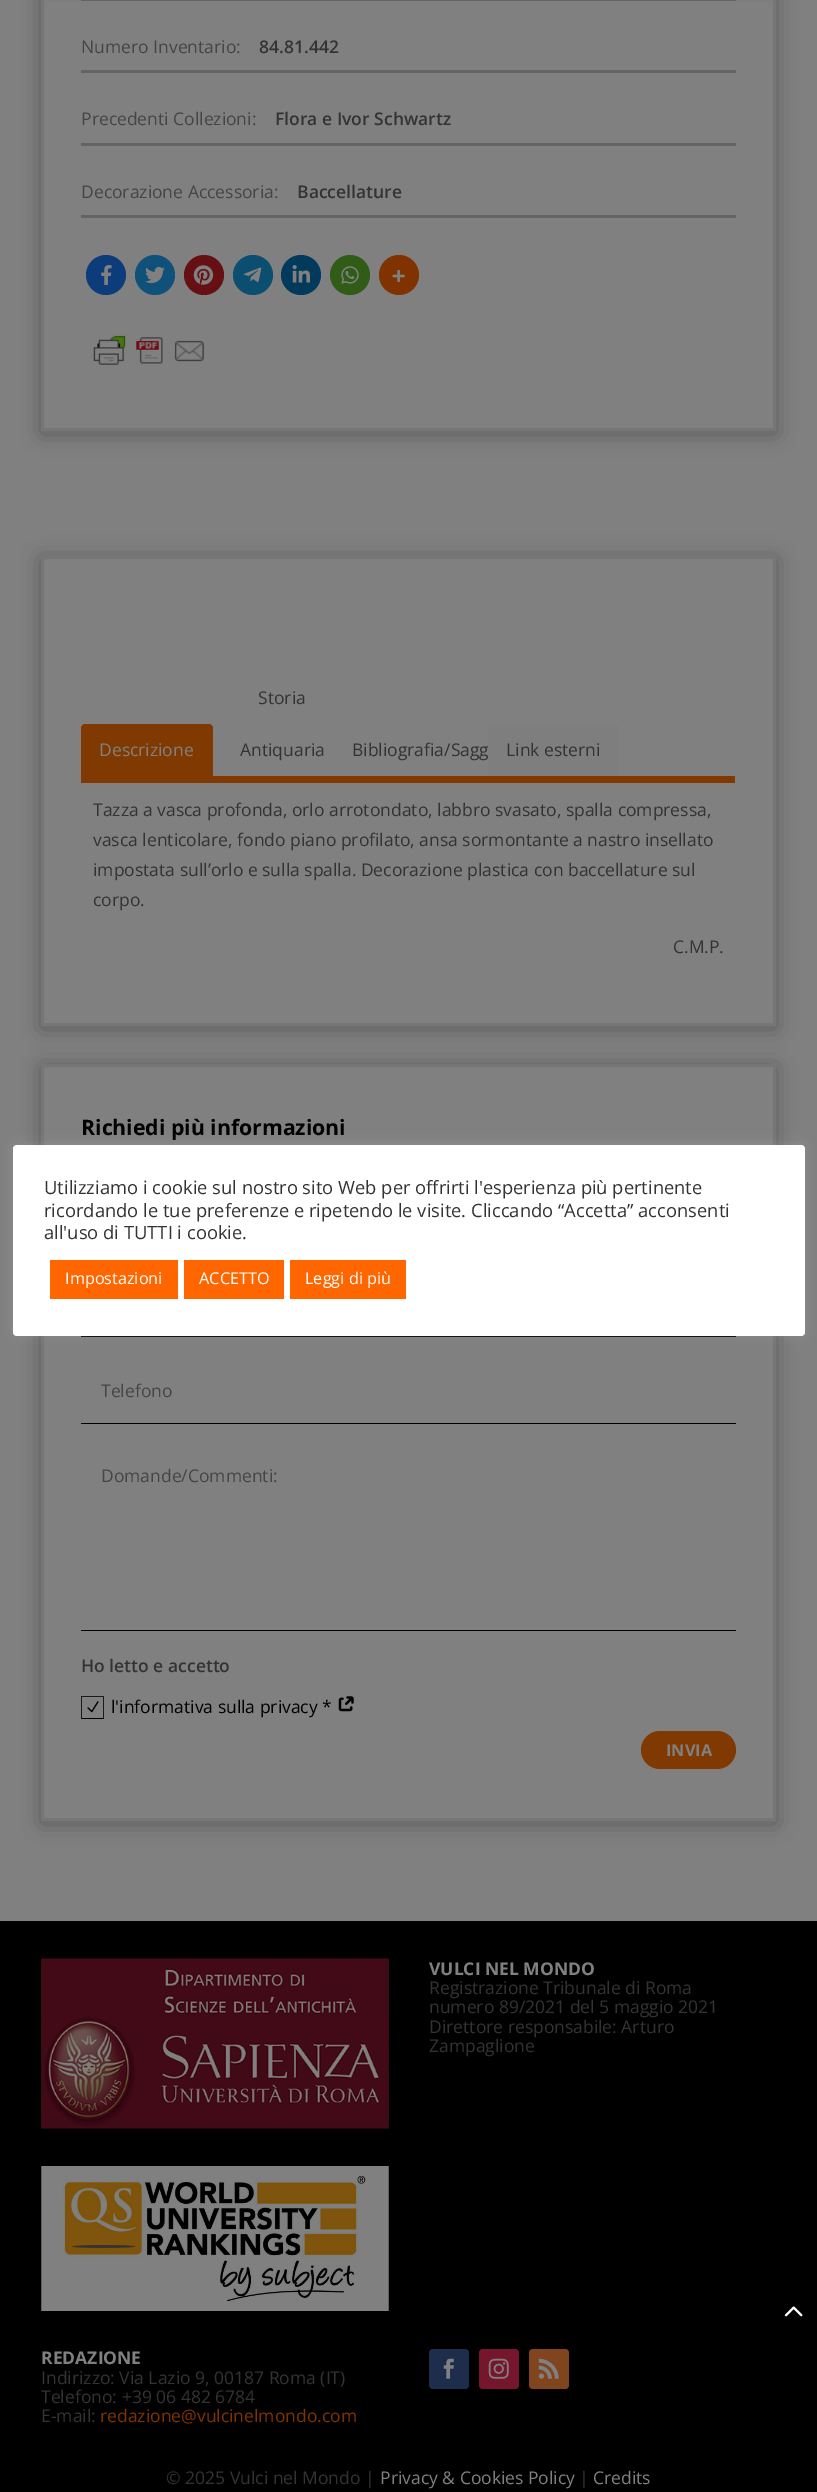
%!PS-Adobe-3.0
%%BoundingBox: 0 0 817 2492
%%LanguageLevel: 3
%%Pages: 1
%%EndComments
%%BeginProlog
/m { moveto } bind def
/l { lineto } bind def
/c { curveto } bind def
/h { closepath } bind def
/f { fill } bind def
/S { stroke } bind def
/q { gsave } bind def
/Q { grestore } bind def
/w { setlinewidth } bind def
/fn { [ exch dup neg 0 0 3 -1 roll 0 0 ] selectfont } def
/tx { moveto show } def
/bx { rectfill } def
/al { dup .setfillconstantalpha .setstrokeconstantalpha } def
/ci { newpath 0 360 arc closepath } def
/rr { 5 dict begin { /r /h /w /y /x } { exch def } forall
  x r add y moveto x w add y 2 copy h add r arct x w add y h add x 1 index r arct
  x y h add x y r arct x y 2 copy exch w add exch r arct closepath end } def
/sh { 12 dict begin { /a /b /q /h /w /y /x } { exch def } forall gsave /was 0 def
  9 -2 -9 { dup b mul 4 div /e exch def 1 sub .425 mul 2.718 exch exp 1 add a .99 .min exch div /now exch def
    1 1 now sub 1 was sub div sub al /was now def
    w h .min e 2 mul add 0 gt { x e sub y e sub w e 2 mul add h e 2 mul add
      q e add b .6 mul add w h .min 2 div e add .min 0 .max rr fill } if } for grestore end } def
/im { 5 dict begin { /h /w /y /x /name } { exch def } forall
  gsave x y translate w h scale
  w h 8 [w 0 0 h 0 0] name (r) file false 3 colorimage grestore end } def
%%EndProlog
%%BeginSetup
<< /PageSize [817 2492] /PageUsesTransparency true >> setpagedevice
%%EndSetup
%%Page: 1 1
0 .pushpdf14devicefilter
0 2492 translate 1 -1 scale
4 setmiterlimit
0.502 setgray
0 0 817 2492 bx
q
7 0 m 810 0 l 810 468 l 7 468 l h 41 -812 m 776 -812 l 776 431 l 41 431 l h eoclip newpath
0 setgray
41 -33 735 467 0 11 0.3 sh
Q
0.467 0.463 0.463 setrgbcolor
3 w
42.5 -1.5 732 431 rectstroke
0.392 setgray
81 0 655 1 bx
81 70 655 3 bx
/OpenSans-Regular 17.5 fn
0.271 setgray
(Numero Inventario:) 81 53 tx
/OpenSans-SemiBold 17.5 fn
0.2 setgray
(84.81.442) 259 53 tx
0.392 setgray
81 143 655 3 bx
/OpenSans-Regular 17.5 fn
0.271 setgray
(Precedenti Collezioni:) 81 125 tx
/OpenSans-SemiBold 17.5 fn
0.2 setgray
(Flora e Ivor Schwartz) 275 125 tx
0.392 setgray
81 215 655 3 bx
/OpenSans-Regular 17.5 fn
0.271 setgray
(Decorazione Accessoria:) 81 198 tx
/OpenSans-SemiBold 17.5 fn
0.2 setgray
(Baccellature) 297 198 tx
0.051 0.235 0.478 setrgbcolor
106 275 20 ci f
(image0.raw) 101 265 11 20 im
0.059 0.318 0.475 setrgbcolor
155 275 20 ci f
(image1.raw) 145 266 20 18 im
0.4 0.063 0.078 setrgbcolor
204 275 20 ci f
(image2.raw) 193 265 21 20 im
0.047 0.306 0.435 setrgbcolor
253 275 20 ci f
(image3.raw) 243 267 19 16 im
0.004 0.227 0.353 setrgbcolor
301 275 20 ci f
(image4.raw) 292 265 18 18 im
0.188 0.361 0.09 setrgbcolor
350 275 20 ci f
(image5.raw) 341 266 18 18 im
0.502 0.2 0 setrgbcolor
399 275 20 ci f
(image6.raw) 392 269 13 14 im
(image7.raw) 93 335 111 30 im
0 setgray
41 559 735 470 0 11 0.3 sh
0.502 setgray
42.5 557.5 m 774.5 557.5 l 774.5 1024.5 l 42.5 1024.5 l h q f Q
0.467 0.463 0.463 setrgbcolor
S
0.502 0.224 0 setrgbcolor
85 724 m 209 724 l 211 724 213 726 213 728 c 213 776 l 81 776 l 81 728 l 81 726 83 724 85 724 c h f
/OpenSans-Regular 17.5 fn
0.502 setgray
(Descrizione) 99 756 tx
0.2 setgray
(Storia) 258 704 tx
(Antiquaria) 240 756 tx
(Bibliografia/Sagg) 352 756 tx
0.494 setgray
492 724 m 615 724 l 617 724 619 726 619 728 c 619 776 l 488 776 l 488 728 l 488 726 490 724 492 724 c h f
0.2 setgray
(Link esterni) 506 756 tx
0.502 0.224 0 setrgbcolor
81 776 654 7 bx
0.2 setgray
(Tazza a vasca profonda, orlo arrotondato, labbro svasato, spalla compressa,) 93 816 tx
(vasca lenticolare, fondo piano profilato, ansa sormontante a nastro insellato) 93 846 tx
(impostata sull’orlo e sulla spalla. Decorazione plastica con baccellature sul) 93 876 tx
(corpo.) 93 906 tx
(C.M.P.) 673 953 tx
0 setgray
41 1066 735 758 0 11 0.3 sh
0.502 setgray
42.5 1065.5 m 774.5 1065.5 l 774.5 1819.5 l 42.5 1819.5 l h q f Q
0.467 0.463 0.463 setrgbcolor
S
/OpenSans-Bold 21.25 fn
0 setgray
(Richiedi più informazioni) 81 1135 tx
81 1336 655 1 bx
81 1423 655 1 bx
/OpenSans-Regular 17.5 fn
0.271 setgray
(Telefono) 101 1397 tx
0 setgray
81 1630 655 1 bx
0.271 setgray
(Domande/Commenti:) 101 1482 tx
/OpenSans-SemiBold 17.5 fn
0.2 setgray
(Ho letto e accetto) 81 1672 tx
0.102 setgray
81 1696 23 1 bx
103 1696 1 23 bx
0 setgray
81 1718 23 1 bx
0.102 setgray
81 1696 1 23 bx
(image8.raw) 87 1701 12 12 im
/OpenSans-Regular 17.5 fn
0 setgray
(l'informativa sulla privacy *) 111 1713 tx
(image9.raw) 338 1696 16 16 im
0.502 0.224 0 setrgbcolor
641 1731 95 38 19 rr f
/OpenSans-Bold 16.25 fn
0.502 setgray
(INVIA) 666 1756 tx
0 setgray
0 1921 817 571 bx
(image10.raw) 41 1958 348 171 im
(image11.raw) 41 2166 348 145 im
/OpenSans-Bold 17.5 fn
0.502 setgray
(VULCI NEL MONDO) 429 1975 tx
/OpenSans-Regular 17.5 fn
0.2 setgray
(Registrazione Tribunale di Roma) 429 1994 tx
(numero 89/2021 del 5 maggio 2021) 429 2013 tx
(Direttore responsabile: Arturo) 429 2033 tx
(Zampaglione) 429 2052 tx
/OpenSans-Bold 17.5 fn
0.502 setgray
(REDAZIONE) 41 2364 tx
/OpenSans-Regular 17.5 fn
0.2 setgray
(Indirizzo: Via Lazio 9, 00187 Roma \(IT\)) 41 2384 tx
(Telefono: +39 06 482 6784) 41 2403 tx
(E-mail:) 41 2422 tx
0.502 0.2 0 setrgbcolor
(redazione@vulcinelmondo.com) 100 2422 tx
0.118 0.176 0.298 setrgbcolor
429 2349 40 40 4 rr f
(image12.raw) 443 2358 11 21 im
0.459 0.086 0.176 setrgbcolor
479 2349 40 40 4 rr f
(image13.raw) 488 2358 21 21 im
0.502 0.271 0.118 setrgbcolor
529 2349 40 40 4 rr f
(image14.raw) 538 2358 21 21 im
0.2 setgray
(© 2025 Vulci nel Mondo |) 166 2484 tx
0.502 setgray
(Privacy & Cookies Policy) 380 2484 tx
0.2 setgray
(|) 579 2484 tx
0.502 setgray
(Credits) 593 2484 tx
0.675 0.671 0.671 setrgbcolor
13 1144 792 191 4 6 0.3 sh
1 setgray
13 1145 792 191 4 rr f
/OpenSans-Regular 18.35 fn
0.2 setgray
(Utilizziamo i cookie sul nostro sito Web per offrirti l'esperienza più pertinente) 44 1194 tx
(ricordando le tue preferenze e ripetendo le visite. Cliccando “Accetta” acconsenti) 44 1217 tx
(all'uso di TUTTI i cookie.) 44 1239 tx
1 0.4 0 setrgbcolor
50 1260 128 39 bx
/OpenSans-Regular 16.25 fn
1 setgray
(Impostazioni) 65 1284 tx
1 0.4 0 setrgbcolor
184 1260 100 39 bx
1 setgray
(ACCETTO) 199 1284 tx
1 0.4 0 setrgbcolor
290 1260 116 39 bx
1 setgray
(Leggi di più) 305 1284 tx
(image15.raw) 784 2306 19 11 im
.poppdf14devicefilter showpage
%%EOF
